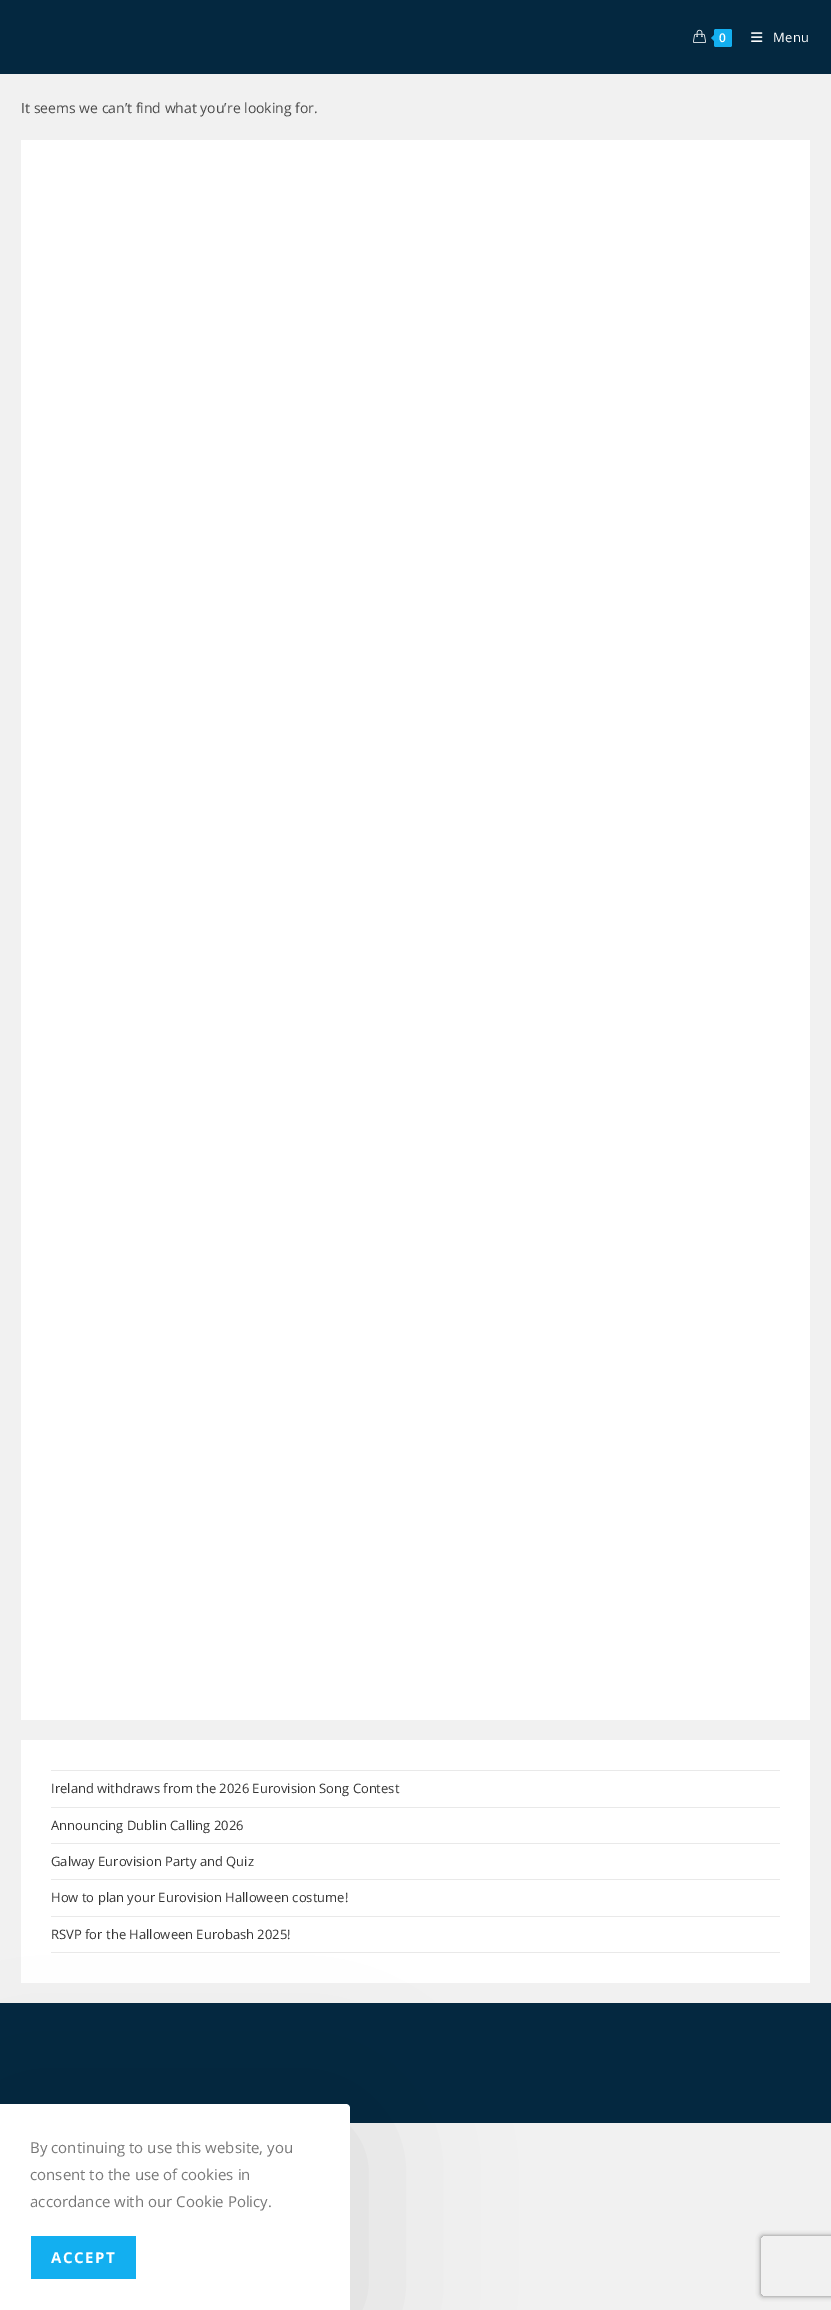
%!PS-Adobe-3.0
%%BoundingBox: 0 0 831 2310
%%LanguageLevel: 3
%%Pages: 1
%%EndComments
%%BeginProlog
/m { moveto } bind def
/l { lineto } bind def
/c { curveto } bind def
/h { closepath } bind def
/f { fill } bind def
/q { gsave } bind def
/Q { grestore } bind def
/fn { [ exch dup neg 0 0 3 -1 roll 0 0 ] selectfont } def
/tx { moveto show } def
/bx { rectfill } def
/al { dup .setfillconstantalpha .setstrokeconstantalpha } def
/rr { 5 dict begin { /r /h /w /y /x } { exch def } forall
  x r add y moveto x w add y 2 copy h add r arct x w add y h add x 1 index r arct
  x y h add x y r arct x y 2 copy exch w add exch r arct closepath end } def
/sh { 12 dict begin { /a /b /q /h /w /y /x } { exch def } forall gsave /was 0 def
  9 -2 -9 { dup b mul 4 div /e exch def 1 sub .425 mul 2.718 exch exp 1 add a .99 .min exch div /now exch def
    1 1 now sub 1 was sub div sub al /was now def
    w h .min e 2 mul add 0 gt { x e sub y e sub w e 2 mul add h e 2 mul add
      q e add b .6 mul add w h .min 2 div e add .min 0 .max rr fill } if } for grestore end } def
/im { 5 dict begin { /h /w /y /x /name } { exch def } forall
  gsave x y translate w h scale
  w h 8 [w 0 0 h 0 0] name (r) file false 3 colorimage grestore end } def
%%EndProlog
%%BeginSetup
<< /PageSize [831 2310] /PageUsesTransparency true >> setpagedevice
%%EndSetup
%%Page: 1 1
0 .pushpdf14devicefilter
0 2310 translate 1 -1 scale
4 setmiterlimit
0.945 setgray
0 0 831 2310 bx
0.016 0.157 0.251 setrgbcolor
0 0 831 74 bx
(image0.raw) 693 29 13 14 im
0.075 0.686 0.941 setrgbcolor
714 29 18 18 2 rr f
716 33 m 716 43 l 711 38 l h f
/OpenSans-SemiBold 12 fn
1 setgray
719 42 m 0.5 0 (0) ashow
(image1.raw) 751 32 12 10 im
/OpenSans-Regular 13 fn
773 42 m 0.5 0 (Menu) ashow
/OpenSans-Regular 14 fn
0.29 setgray
(It seems we can’t find what you’re looking for.) 21 113 tx
1 setgray
21 140 789 1580 bx
21 1740 789 243 bx
0.914 setgray
51 1770 729 1 bx
51 1807 729 1 bx
/OpenSans-Regular 13 fn
0.2 setgray
(Ireland withdraws from the 2026 Eurovision Song Contest) 51 1793 tx
0.914 setgray
51 1843 729 1 bx
0.2 setgray
(Announcing Dublin Calling 2026) 51 1830 tx
0.914 setgray
51 1879 729 1 bx
0.2 setgray
(Galway Eurovision Party and Quiz) 51 1866 tx
0.914 setgray
51 1916 729 1 bx
0.2 setgray
(How to plan your Eurovision Halloween costume!) 51 1902 tx
0.914 setgray
51 1952 729 1 bx
0.2 setgray
(RSVP for the Halloween Eurobash 2025!) 51 1939 tx
0.016 0.157 0.251 setrgbcolor
0 2003 831 120 bx
0 setgray
0 2124 350 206 4 75 0.1 sh
1 setgray
0 2104 m 346 2104 l 348 2104 350 2106 350 2108 c 350 2310 l 0 2310 l h f
/OpenSans-Regular 15 fn
0.467 setgray
(By continuing to use this website, you) 30 2153 tx
(consent to the use of cookies in) 30 2180 tx
(accordance with our Cookie Policy.) 30 2207 tx
0.075 0.686 0.941 setrgbcolor
31 2236 105 43 bx
/OpenSans-Bold 15 fn
1 setgray
51 2263 m 1.5 0 (ACCEPT) ashow
q
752 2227 m 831 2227 l 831 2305 l 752 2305 l h 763 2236 m 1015 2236 l 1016 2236 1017 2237 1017 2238 c 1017 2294 l 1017 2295 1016 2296 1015 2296 c 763 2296 l 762 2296 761 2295 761 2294 c 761 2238 l 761 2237 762 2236 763 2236 c h eoclip newpath
0.502 setgray
761 2236 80 60 2 2.5 1 sh
Q
.poppdf14devicefilter showpage
%%EOF
